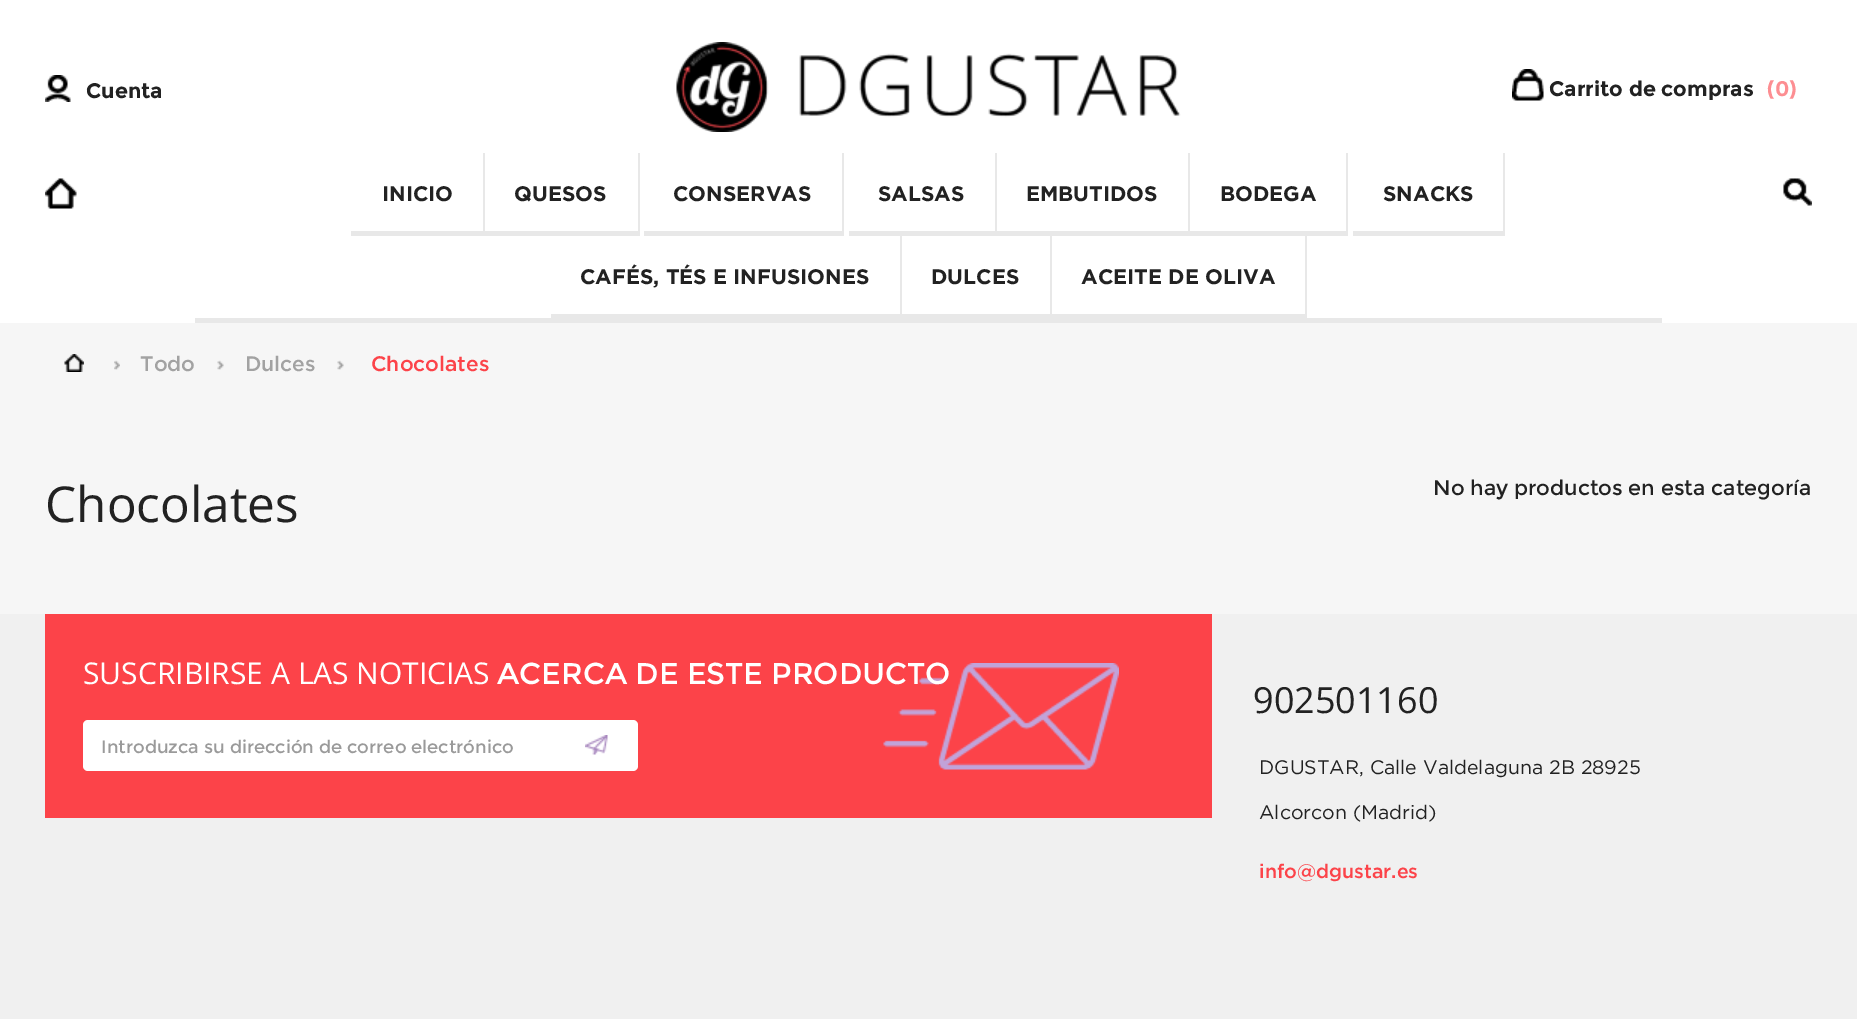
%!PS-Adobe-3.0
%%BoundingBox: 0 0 1857 1019
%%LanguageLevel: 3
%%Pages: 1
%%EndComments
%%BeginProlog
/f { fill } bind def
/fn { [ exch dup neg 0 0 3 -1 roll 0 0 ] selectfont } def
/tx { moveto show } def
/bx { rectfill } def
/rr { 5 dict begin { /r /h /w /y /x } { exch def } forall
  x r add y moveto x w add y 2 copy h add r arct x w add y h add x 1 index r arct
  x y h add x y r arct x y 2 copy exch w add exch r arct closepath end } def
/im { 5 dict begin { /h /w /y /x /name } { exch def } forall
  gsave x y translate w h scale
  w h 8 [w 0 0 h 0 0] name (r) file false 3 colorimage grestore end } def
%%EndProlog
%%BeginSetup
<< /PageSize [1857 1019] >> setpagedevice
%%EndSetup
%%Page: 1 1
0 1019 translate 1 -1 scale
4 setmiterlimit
0.941 setgray
0 0 1857 1019 bx
1 setgray
0 0 1857 323 bx
(image0.raw) 45 75 26 27 im
/Montserrat-Bold 21 fn
0.133 setgray
(Cuenta) 86 98 tx
(image1.raw) 676 42 505 90 im
(image2.raw) 1512 69 32 32 im
(Carrito de compras) 1549 96 tx
0.992 0.557 0.573 setrgbcolor
(\(0\)) 1767 96 tx
(image3.raw) 45 178 32 31 im
0.91 setgray
195 318 1467 5 bx
483 153 2 83 bx
351 231 132 5 bx
/Gotham-Bold 21 fn
0.133 setgray
(INICIO) 382 201 tx
0.91 setgray
638 153 2 83 bx
485 231 153 5 bx
0.133 setgray
(QUESOS) 514 201 tx
0.91 setgray
842 153 2 83 bx
644 231 198 5 bx
0.133 setgray
(CONSERVAS) 673 201 tx
0.91 setgray
995 153 2 83 bx
849 231 146 5 bx
0.133 setgray
(SALSAS) 878 201 tx
0.91 setgray
1188 153 2 83 bx
996 231 192 5 bx
0.133 setgray
(EMBUTIDOS) 1026 201 tx
0.91 setgray
1346 153 2 83 bx
1190 231 156 5 bx
0.133 setgray
(BODEGA) 1220 201 tx
0.91 setgray
1503 153 2 83 bx
1353 231 150 5 bx
0.133 setgray
(SNACKS) 1383 201 tx
0.91 setgray
900 236 2 82 bx
551 314 349 4 bx
0.133 setgray
(CAFÉS, TÉS E INFUSIONES) 580 284 tx
0.91 setgray
1050 236 2 82 bx
902 314 148 4 bx
0.133 setgray
(DULCES) 931 284 tx
0.91 setgray
1305 236 2 82 bx
1052 314 253 4 bx
0.133 setgray
(ACEITE DE OLIVA) 1081 284 tx
(image4.raw) 1783 178 29 28 im
0.965 setgray
0 323 1857 291 bx
(image5.raw) 64 354 20 18 im
(image6.raw) 114 360 6 10 im
/Gotham-Medium 21 fn
0.635 setgray
(Todo) 140 371 tx
(image7.raw) 217 360 7 10 im
(Dulces) 245 371 tx
(image7.raw) 337 360 7 10 im
0.988 0.263 0.286 setrgbcolor
(Chocolates) 371 371 tx
/OpenSans-Regular 49.5 fn
0.133 setgray
(Chocolates) 45 522 tx
/Montserrat-Regular 21 fn
(No hay productos en esta categoría) 1433 495 tx
0.988 0.263 0.286 setrgbcolor
45 614 1167 204 bx
(image8.raw) 883 663 236 107 im
/OpenSans-Regular 30 fn
1 setgray
(SUSCRIBIRSE A LAS NOTICIAS) 83 684 tx
/Montserrat-Regular 30 fn
(ACERCA DE ESTE PRODUCTO) 497 684 tx
83 720 555 51 5 rr f
/Montserrat-Regular 18 fn
0.604 setgray
(Introduzca su dirección de correo electrónico) 101 753 tx
(image9.raw) 585 735 23 20 im
/OpenSans-Regular 36 fn
0.133 setgray
(902501160) 1253 713 tx
/Gotham-Regular 19.5 fn
(DGUSTAR, Calle Valdelaguna 2B 28925) 1259 774 tx
(Alcorcon \(Madrid\)) 1259 819 tx
/Gotham-Medium 19.5 fn
0.988 0.263 0.286 setrgbcolor
(info@dgustar.es) 1259 878 tx
showpage
%%EOF
